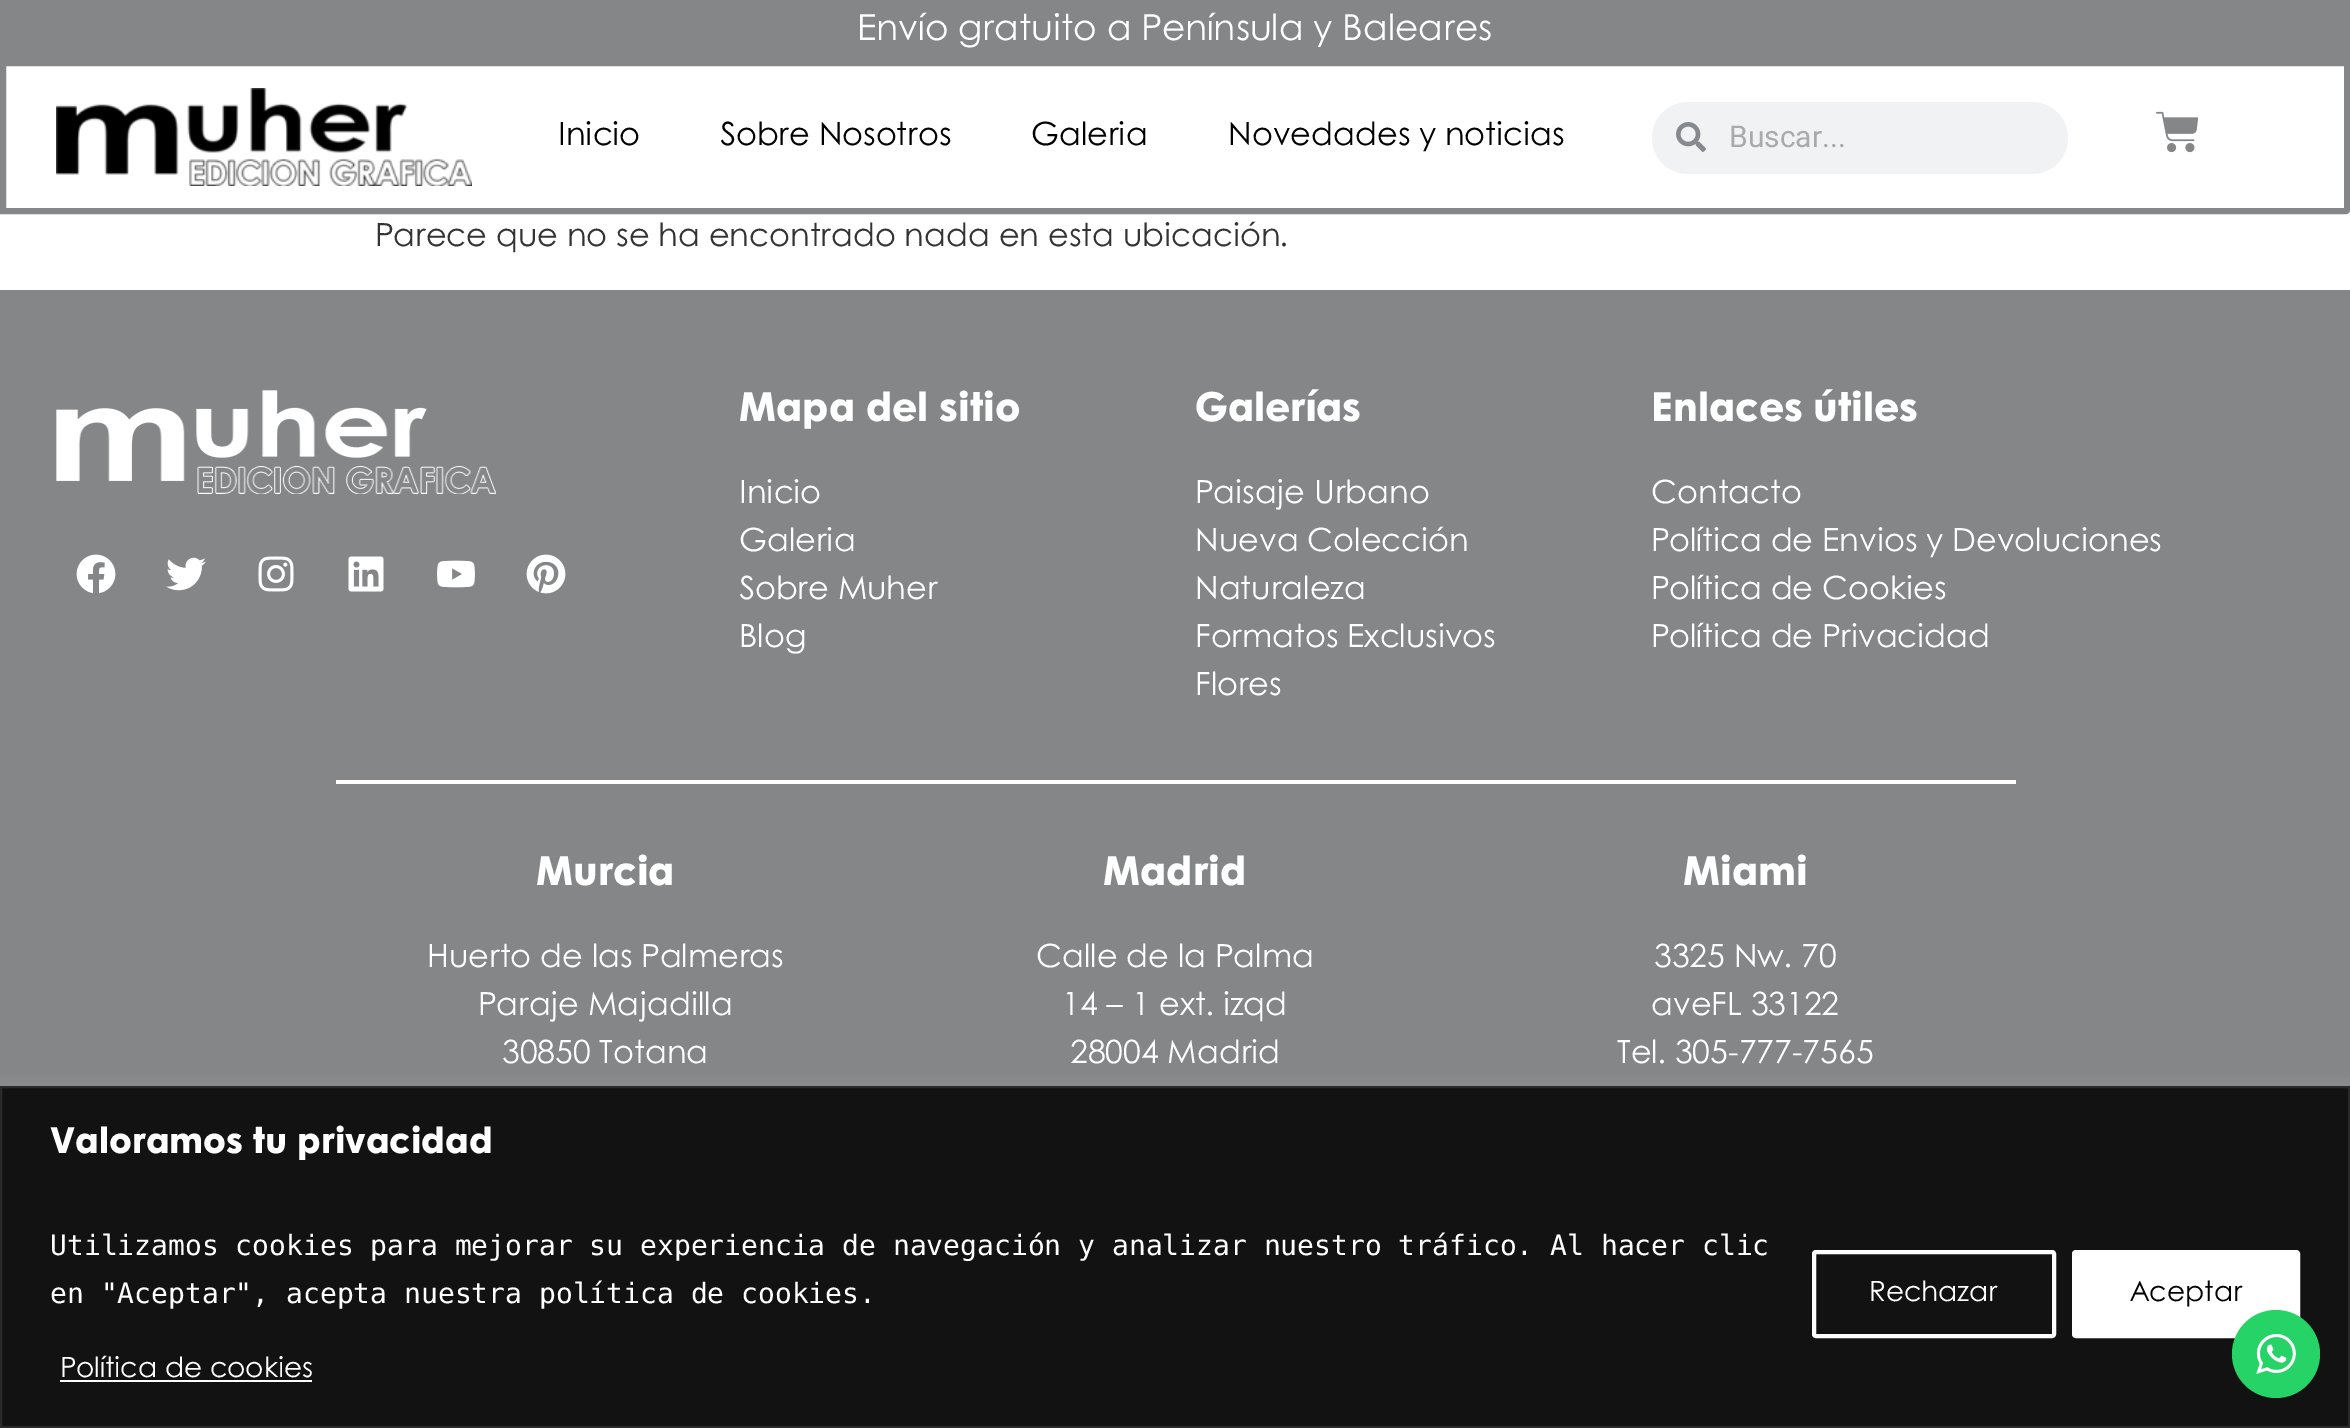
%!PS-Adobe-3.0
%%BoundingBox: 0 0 2350 1428
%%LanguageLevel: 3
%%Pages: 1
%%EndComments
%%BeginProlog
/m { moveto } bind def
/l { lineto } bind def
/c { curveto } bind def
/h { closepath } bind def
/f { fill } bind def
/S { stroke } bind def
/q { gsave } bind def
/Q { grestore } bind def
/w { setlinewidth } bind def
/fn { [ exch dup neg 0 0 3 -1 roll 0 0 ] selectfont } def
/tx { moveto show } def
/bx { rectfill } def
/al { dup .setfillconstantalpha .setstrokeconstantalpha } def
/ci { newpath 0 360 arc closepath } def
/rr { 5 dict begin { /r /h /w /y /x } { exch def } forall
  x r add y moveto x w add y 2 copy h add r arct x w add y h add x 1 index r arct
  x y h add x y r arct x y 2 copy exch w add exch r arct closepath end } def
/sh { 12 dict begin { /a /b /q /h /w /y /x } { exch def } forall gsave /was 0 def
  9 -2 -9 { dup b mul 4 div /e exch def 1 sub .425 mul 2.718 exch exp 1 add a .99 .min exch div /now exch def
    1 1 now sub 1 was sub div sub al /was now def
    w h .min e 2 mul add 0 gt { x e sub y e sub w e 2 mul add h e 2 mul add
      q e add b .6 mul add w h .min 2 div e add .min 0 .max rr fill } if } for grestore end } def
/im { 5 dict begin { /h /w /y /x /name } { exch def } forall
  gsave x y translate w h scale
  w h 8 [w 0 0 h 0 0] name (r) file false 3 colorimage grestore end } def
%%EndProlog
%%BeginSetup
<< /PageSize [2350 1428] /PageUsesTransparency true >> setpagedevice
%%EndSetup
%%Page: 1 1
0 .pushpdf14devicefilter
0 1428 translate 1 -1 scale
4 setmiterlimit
1 setgray
0 0 2350 1428 bx
0.518 0.525 0.529 setrgbcolor
0 0 2350 60 bx
/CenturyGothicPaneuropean-Regular 36 fn
1 setgray
(Envío gratuito a Península y Baleares) 857 40 tx
0.518 0.525 0.529 setrgbcolor
6 w
3 63 m 2347 63 l 2347 210 l 2347 210.5 2346.5 211 2346 211 c 3 211 l h S
(image0.raw) 56 88 416 98 im
/CenturyGothicPaneuropean-Regular 32 fn
0 setgray
(Inicio) 558 145 tx
(Sobre Nosotros) 720 145 tx
(Galeria) 1031 145 tx
(Novedades y noticias) 1228 145 tx
0.945 0.949 0.953 setrgbcolor
1652 102 416 72 36 rr f
(image1.raw) 1676 122 30 30 im
/Roboto-Regular 30 fn
0.667 setgray
(Buscar...) 1729 147 tx
(image2.raw) 2156 111 43 42 im
/CenturyGothicPaneuropean-Regular 32 fn
0.2 setgray
(Parece que no se ha encontrado nada en esta ubicación.) 375 246 tx
0.518 0.525 0.529 setrgbcolor
0 290 2350 796 bx
(image3.raw) 56 390 440 104 im
(image4.raw) 76 554 40 40 im
(image5.raw) 166 557 40 34 im
(image6.raw) 258 556 36 36 im
(image7.raw) 348 556 36 36 im
(image8.raw) 437 560 38 28 im
(image9.raw) 526 554 40 40 im
/CenturyGothicPaneuropean-ExtraBold 40 fn
1 setgray
(Mapa del sitio) 739 421 tx
/CenturyGothicPaneuropean-Regular 32 fn
(Inicio) 739 503 tx
(Galeria) 739 551 tx
(Sobre Muher) 739 599 tx
(Blog) 739 647 tx
/CenturyGothicPaneuropean-ExtraBold 40 fn
(Galerías) 1195 421 tx
/CenturyGothicPaneuropean-Regular 32 fn
(Paisaje Urbano) 1195 503 tx
(Nueva Colección) 1195 551 tx
(Naturaleza) 1195 599 tx
(Formatos Exclusivos) 1195 647 tx
(Flores) 1195 695 tx
/CenturyGothicPaneuropean-ExtraBold 40 fn
(Enlaces útiles) 1651 421 tx
/CenturyGothicPaneuropean-Regular 32 fn
(Contacto) 1651 503 tx
(Política de Envios y Devoluciones) 1651 551 tx
(Política de Cookies) 1651 599 tx
(Política de Privacidad) 1651 647 tx
336 780 1680 4 bx
/CenturyGothicPaneuropean-ExtraBold 40 fn
(Murcia) 536 885 tx
/CenturyGothicPaneuropean-Regular 32 fn
(Huerto de las Palmeras) 427 967 tx
(Paraje Majadilla) 478 1015 tx
(30850 Totana) 502 1063 tx
/CenturyGothicPaneuropean-ExtraBold 40 fn
(Madrid) 1103 885 tx
/CenturyGothicPaneuropean-Regular 32 fn
(Calle de la Palma) 1036 967 tx
(14 – 1 ext. izqd) 1062 1015 tx
(28004 Madrid) 1070 1063 tx
/CenturyGothicPaneuropean-ExtraBold 40 fn
(Miami) 1683 885 tx
/CenturyGothicPaneuropean-Regular 32 fn
(3325 Nw. 70) 1654 967 tx
(aveFL 33122) 1651 1015 tx
(Tel. 305-777-7565) 1617 1063 tx
0.675 0.671 0.671 setrgbcolor
0 1084 2350 342 0 10 0.3 sh
0.071 setgray
1 1087 m 2349 1087 l 2349 1427 l 1 1427 l h q f Q
0.165 setgray
2 w
S
/CenturyGothicPaneuropean-ExtraBold 36 fn
1 setgray
(Valoramos tu privacidad) 50 1153 tx
/DejaVuSansMono-Regular 28 fn
(Utilizamos cookies para mejorar su experiencia de navegación y analizar nuestro tráfico. Al hacer clic) 50 1255 tx
(en "Aceptar", acepta nuestra política de cookies.) 50 1303 tx
/CenturyGothicPaneuropean-Regular 28 fn
(Política de cookies) 60 1377 tx
60 1380 252 2 bx
4 w
1814 1252 240 84 2 rr S
(Rechazar) 1869 1301 tx
2074 1252 224 84 2 rr q f Q
S
0 setgray
(Aceptar) 2130 1301 tx
0.145 0.827 0.4 setrgbcolor
2276 1354 44 ci f
(image10.raw) 2256 1334 40 40 im
.poppdf14devicefilter showpage
%%EOF
